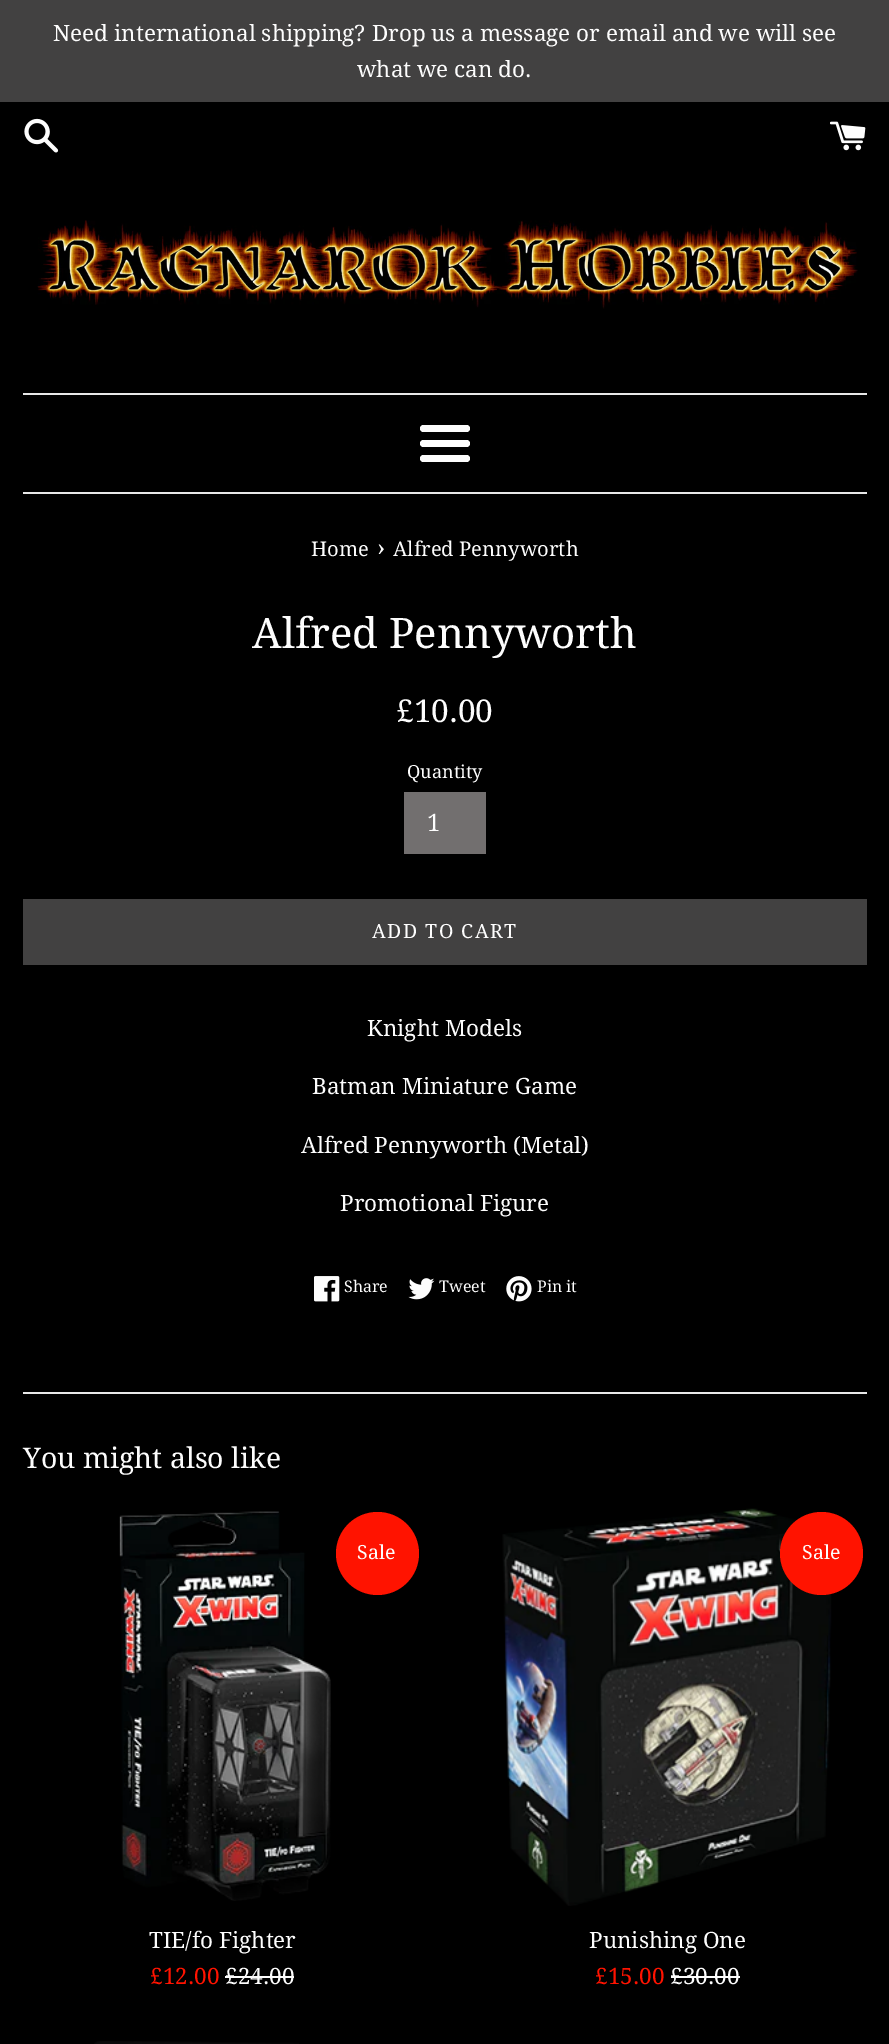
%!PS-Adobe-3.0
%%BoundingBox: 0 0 889 2044
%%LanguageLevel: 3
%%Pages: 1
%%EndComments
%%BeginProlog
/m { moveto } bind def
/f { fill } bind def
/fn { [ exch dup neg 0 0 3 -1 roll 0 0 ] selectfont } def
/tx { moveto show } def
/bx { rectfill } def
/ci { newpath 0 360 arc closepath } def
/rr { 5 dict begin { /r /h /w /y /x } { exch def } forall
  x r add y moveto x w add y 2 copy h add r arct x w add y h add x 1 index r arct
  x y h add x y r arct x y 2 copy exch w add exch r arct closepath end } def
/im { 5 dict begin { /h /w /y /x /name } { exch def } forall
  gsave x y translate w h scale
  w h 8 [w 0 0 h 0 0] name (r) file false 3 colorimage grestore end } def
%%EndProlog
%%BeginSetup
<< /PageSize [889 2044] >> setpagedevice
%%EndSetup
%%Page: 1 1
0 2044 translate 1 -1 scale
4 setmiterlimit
0 setgray
0 0 889 2044 bx
0.259 0.255 0.255 setrgbcolor
0 0 889 102 bx
/DroidSerif-Regular 22.5 fn
0.992 setgray
(Need international shipping? Drop us a message or email and we will see) 53 41 tx
(what we can do.) 357 77 tx
(image0.raw) 24 118 35 35 im
(image1.raw) 830 121 36 30 im
(image2.raw) 37 220 821 89 im
0.91 setgray
23 393 844 2 bx
0.992 setgray
420 425 50 7 3.5 rr f
420 440 50 7 3.5 rr f
420 455 50 7 3.5 rr f
0.91 setgray
23 492 844 2 bx
/DroidSerif-Regular 20.25 fn
0.992 setgray
(Home) 311 556 tx
/DroidSerif-Regular 25 fn
(›) 377 556 tx
/DroidSerif-Regular 20.25 fn
(Alfred Pennyworth) 393 556 tx
/DroidSerif-Regular 42 fn
(Alfred Pennyworth) 252 648 tx
/DroidSerif-Regular 31.5 fn
(£10.00) 396 722 tx
/DroidSerif-Regular 18 fn
(Quantity) 407 778 tx
0.447 0.435 0.435 setrgbcolor
404 792 82 62 bx
/DroidSerif-Regular 24 fn
0.992 setgray
(1) 427 831 tx
0.259 0.255 0.255 setrgbcolor
23 899 844 66 bx
/DroidSerif-Regular 19.5 fn
0.992 setgray
372 938 m 1.5 0 (ADD TO CART) ashow
/DroidSerif-Regular 22.5 fn
(Knight Models) 367 1036 tx
(Batman Miniature Game) 312 1094 tx
(Alfred Pennyworth \(Metal\)) 301 1153 tx
(Promotional Figure) 340 1211 tx
(image3.raw) 314 1276 26 26 im
/DroidSerif-Regular 16 fn
(Share) 344 1292 tx
(image4.raw) 408 1278 27 22 im
(Tweet) 439 1292 tx
(image5.raw) 506 1276 26 26 im
(Pin it) 537 1292 tx
0.91 setgray
23 1392 844 2 bx
/DroidSerif-Regular 28.5 fn
0.992 setgray
(You might also like) 23 1468 tx
(image6.raw) 119 1511 212 390 im
1 0.075 0 setrgbcolor
377.5 1553.5 41.5 ci f
/DroidSerif-Regular 19.5 fn
0.992 setgray
(Sale) 357 1559 tx
/DroidSerif-Regular 22.5 fn
1 0.075 0 setrgbcolor
(£12.00) 150 1984 tx
0.992 setgray
(£24.00) 225 1984 tx
225 1976 69 2 bx
(TIE/fo Fighter) 149 1948 tx
(image7.raw) 502 1508 331 398 im
1 0.075 0 setrgbcolor
821.5 1553.5 41.5 ci f
/DroidSerif-Regular 19.5 fn
0.992 setgray
(Sale) 802 1559 tx
/DroidSerif-Regular 22.5 fn
1 0.075 0 setrgbcolor
(£15.00) 595 1984 tx
0.992 setgray
(£30.00) 670 1984 tx
671 1976 69 2 bx
(Punishing One) 589 1948 tx
(image8.raw) 94 2041 205 3 im
showpage
%%EOF
